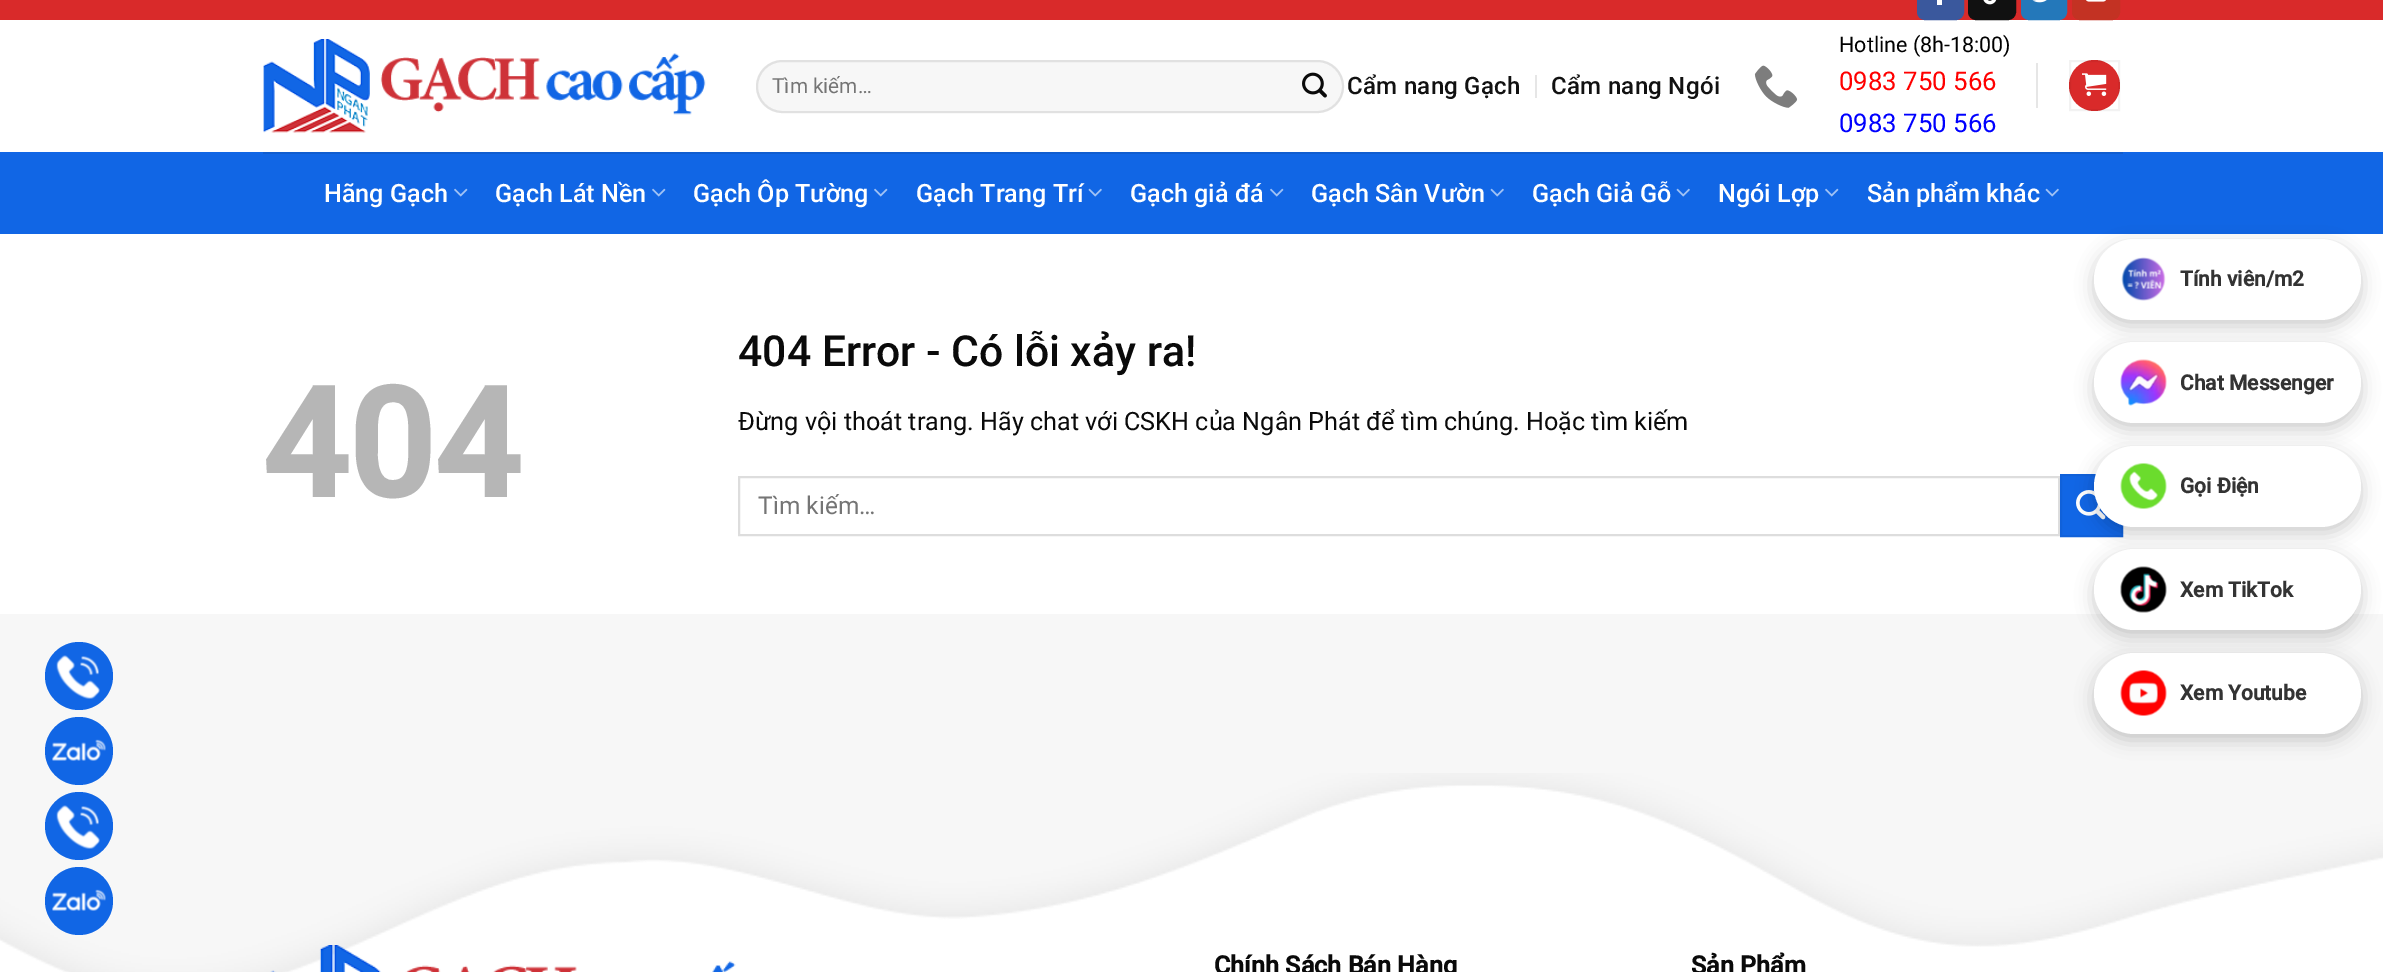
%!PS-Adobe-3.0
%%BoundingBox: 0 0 2383 972
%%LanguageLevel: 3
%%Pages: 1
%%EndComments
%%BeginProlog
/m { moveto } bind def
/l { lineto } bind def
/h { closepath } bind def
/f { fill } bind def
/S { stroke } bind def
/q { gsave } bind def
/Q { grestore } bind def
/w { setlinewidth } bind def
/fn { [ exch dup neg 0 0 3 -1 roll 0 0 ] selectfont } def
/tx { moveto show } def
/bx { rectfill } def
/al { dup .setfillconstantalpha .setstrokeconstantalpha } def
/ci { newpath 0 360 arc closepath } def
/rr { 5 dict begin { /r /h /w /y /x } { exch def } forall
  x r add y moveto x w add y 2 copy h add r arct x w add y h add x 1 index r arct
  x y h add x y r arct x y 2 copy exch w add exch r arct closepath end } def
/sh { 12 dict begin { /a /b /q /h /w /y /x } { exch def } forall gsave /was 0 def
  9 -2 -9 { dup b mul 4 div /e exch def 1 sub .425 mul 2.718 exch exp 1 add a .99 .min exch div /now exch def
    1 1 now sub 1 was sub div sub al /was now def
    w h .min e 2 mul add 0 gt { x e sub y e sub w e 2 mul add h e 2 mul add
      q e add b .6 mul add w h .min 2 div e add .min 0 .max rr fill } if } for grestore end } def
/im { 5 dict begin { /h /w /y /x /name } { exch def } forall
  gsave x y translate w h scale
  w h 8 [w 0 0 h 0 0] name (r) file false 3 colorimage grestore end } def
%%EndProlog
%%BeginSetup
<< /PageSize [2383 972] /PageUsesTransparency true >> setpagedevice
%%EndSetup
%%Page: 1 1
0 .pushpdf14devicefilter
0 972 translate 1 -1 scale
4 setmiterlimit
1 setgray
0 0 2383 972 bx
0.851 0.165 0.165 setrgbcolor
0 0 2383 20 bx
0.227 0.345 0.616 setrgbcolor
1918 -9 45 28 7 rr q f Q
2 w
S
1 setgray
1937 0 5 5 bx
0.067 setgray
1969 -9 46 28 7 rr q f Q
S
(image0.raw) 1983 0 14 5 im
0.141 0.471 0.729 setrgbcolor
2022 -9 44 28 7 rr q f Q
S
(image1.raw) 2032 0 15 3 im
0.765 0.196 0.137 setrgbcolor
2073 -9 46 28 7 rr q f Q
S
(image2.raw) 2086 0 20 2 im
(image3.raw) 263 39 443 94 im
0.969 setgray
756 60 588 53 26.5 rr f
0.09 al
0 setgray
757 61 586 51 25.5 rr S
/Roboto-Regular 20.75 fn
1 al
0.459 setgray
(Tìm kiếm…) 772 93 tx
(image4.raw) 1302 72 25 26 im
/Roboto-Medium 24 fn
0.067 setgray
1347 94 m 0.3 0 (Cẩm nang Gạch) ashow
0.902 setgray
1535 75 2 23 bx
0.067 setgray
1551 94 m 0.3 0 (Cẩm nang Ngói) ashow
(image5.raw) 1754 65 44 43 im
/Roboto-Regular 21.5 fn
0 setgray
(Hotline \(8h-18:00\)) 1839 52 tx
/Roboto-Regular 25.75 fn
1 0 0 setrgbcolor
(0983 750 566) 1839 90 tx
0 0 1 setrgbcolor
(0983 750 566) 1839 132 tx
0.902 setgray
2036 63 2 45 bx
0.851 0.165 0.165 setrgbcolor
2094.5 85.5 25.5 ci f
0.05 al
0 setgray
2070 61 49 49 rectstroke
1 al
(image6.raw) 2082 73 25 23 im
0.067 0.4 0.898 setrgbcolor
0 152 2383 82 bx
0.063 0.365 0.812 setrgbcolor
263 152 1860 2 bx
/Roboto-Medium 25.2 fn
1 setgray
(Hãng Gạch) 324 202 tx
(image7.raw) 454 188 14 9 im
(Gạch Lát Nền) 495 202 tx
(image7.raw) 652 188 14 9 im
(Gạch Ôp Tường) 693 202 tx
(image7.raw) 874 188 14 9 im
(Gạch Trang Trí) 916 202 tx
(image8.raw) 1088 188 14 9 im
(Gạch giả đá) 1130 202 tx
(image7.raw) 1270 188 14 9 im
(Gạch Sân Vườn) 1311 202 tx
(image8.raw) 1490 188 14 9 im
(Gạch Giả Gỗ) 1532 202 tx
(image8.raw) 1676 188 14 9 im
(Ngói Lợp) 1718 202 tx
(image7.raw) 1825 188 14 9 im
(Sản phẩm khác) 1867 202 tx
(image8.raw) 2045 188 14 9 im
/Roboto-Bold 151 fn
0.714 setgray
(404) 262 497 tx
/Roboto-Medium 42.75 fn
0.039 setgray
(404 Error - Có lỗi xảy ra!) 738 366 tx
/Roboto-Regular 25.2 fn
(Đừng vội thoát trang. Hãy chat với CSKH của Ngân Phát để tìm chúng. Hoặc tìm kiếm) 738 430 tx
0.867 setgray
739 477 1320 58 rectstroke
/Roboto-Regular 24.5 fn
0.459 setgray
(Tìm kiếm…) 758 514 tx
0.067 0.4 0.898 setrgbcolor
2061 475 m 2122 475 l 2122 536 l 2061 536 l h q f Q
0.063 0.38 0.855 setrgbcolor
S
(image9.raw) 2076 490 30 30 im
0.969 setgray
0 614 2383 358 bx
(image10.raw) 0 773 2383 199 im
(image11.raw) 270 945 466 27 im
/Roboto-Bold 25.2 fn
0.039 setgray
(Chính Sách Bán Hàng) 1214 974 tx
(Sản Phẩm) 1691 974 tx
0 setgray
2094 245 267 81 40.5 9 0.2 sh
1 setgray
2094 239 267 81 40.5 rr f
(image12.raw) 2121 257 45 44 im
/Roboto-Bold 21 fn
0.2 setgray
(Tính viên/m2) 2180 286 tx
0 setgray
2094 348 267 81 40.5 9 0.2 sh
1 setgray
2094 342 267 81 40.5 rr f
(image13.raw) 2120 359 47 47 im
0.2 setgray
(Chat Messenger) 2180 390 tx
0 setgray
2094 452 267 81 40.5 9 0.2 sh
1 setgray
2094 446 267 81 40.5 rr f
(image14.raw) 2120 463 47 46 im
0.2 setgray
(Gọi Điện) 2180 493 tx
0 setgray
2094 555 267 81 40.5 9 0.2 sh
1 setgray
2094 549 267 81 40.5 rr f
(image15.raw) 2120 566 47 47 im
0.2 setgray
(Xem TikTok) 2180 597 tx
0 setgray
2094 659 267 81 40.5 9 0.2 sh
1 setgray
2094 653 267 81 40.5 rr f
(image16.raw) 2120 670 47 46 im
0.2 setgray
(Xem Youtube) 2180 700 tx
0.067 0.4 0.898 setrgbcolor
79 676 34 ci f
(image17.raw) 56 655 44 44 im
79 751 34 ci f
(image18.raw) 52 739 54 22 im
79 826 34 ci f
(image17.raw) 56 805 44 44 im
79 901 34 ci f
(image18.raw) 52 889 54 22 im
.poppdf14devicefilter showpage
%%EOF
